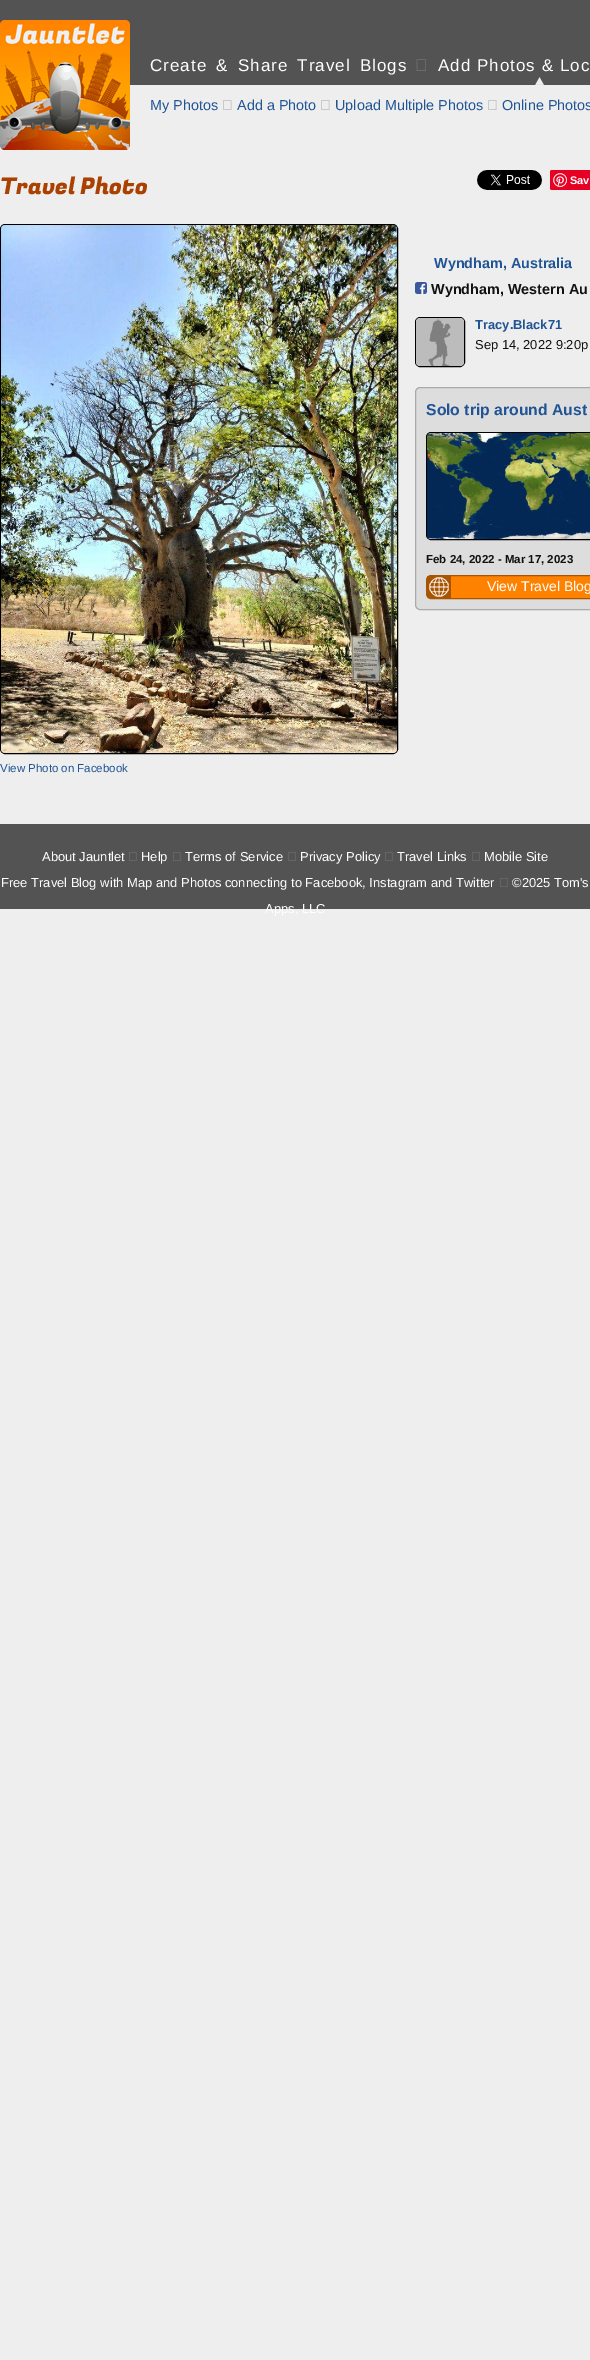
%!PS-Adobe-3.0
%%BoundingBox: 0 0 590 2360
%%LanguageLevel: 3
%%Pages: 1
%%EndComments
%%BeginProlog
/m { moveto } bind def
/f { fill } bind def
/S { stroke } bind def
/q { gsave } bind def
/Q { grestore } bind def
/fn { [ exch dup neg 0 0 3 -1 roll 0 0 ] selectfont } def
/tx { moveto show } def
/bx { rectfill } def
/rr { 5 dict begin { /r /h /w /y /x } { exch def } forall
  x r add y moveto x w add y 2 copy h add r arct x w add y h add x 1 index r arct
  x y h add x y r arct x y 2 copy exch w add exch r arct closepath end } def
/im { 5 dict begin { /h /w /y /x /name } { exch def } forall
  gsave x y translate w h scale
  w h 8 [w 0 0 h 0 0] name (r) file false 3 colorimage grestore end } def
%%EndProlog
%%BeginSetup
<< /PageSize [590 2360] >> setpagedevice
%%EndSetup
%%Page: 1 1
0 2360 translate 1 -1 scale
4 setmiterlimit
0.933 setgray
0 0 590 2360 bx
0.325 setgray
0 0 590 85 bx
(image0.raw) 0 20 130 65 im
/LiberationSans-Regular 17 fn
1 setgray
150 71 m 3.5 0 32 1 0 (Create & Share Travel Blogs) awidthshow
(image1.raw) 416 59 10 12 im
(image2.raw) 535 77 9 8 im
438 71 m 1 0 (Add Photos & Loc) ashow
(image3.raw) 0 85 130 65 im
/LiberationSans-Regular 14.4 fn
0.125 0.329 0.584 setrgbcolor
(My Photos) 150 110 tx
(image4.raw) 223 100 9 10 im
(Add a Photo) 237 110 tx
(image4.raw) 321 100 9 10 im
(Upload Multiple Photos) 335 110 tx
(image4.raw) 488 100 9 10 im
(Online Photos) 502 110 tx
/FugazOne-Regular 23 fn
0.667 0.255 0 setrgbcolor
(Travel Photo) 0 194 tx
(image5.raw) 477 170 65 20 im
0.902 0 0.137 setrgbcolor
550 170 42 20 2 rr f
(image6.raw) 553 173 14 14 im
/LiberationSans-Bold 11 fn
1 setgray
(Sav) 570 184 tx
/LiberationSans-Bold 14.4 fn
0.125 0.329 0.584 setrgbcolor
(Wyndham, Australia) 434 268 tx
(image7.raw) 415 282 12 12 im
0.067 setgray
(Wyndham, Western Au) 431 294 tx
0 setgray
415.5 317.5 49 49 4.5 rr S
(image8.raw) 416 318 48 48 im
/LiberationSans-Bold 12.95 fn
0.125 0.329 0.584 setrgbcolor
(Tracy.Black71) 475 329 tx
/LiberationSans-Regular 12.95 fn
0.067 setgray
(Sep 14, 2022 9:20p) 475 349 tx
0.867 setgray
415.5 387.5 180 222 4.5 rr q f Q
0.667 setgray
S
/LiberationSans-Bold 15.75 fn
0.125 0.329 0.584 setrgbcolor
(Solo trip around Aust) 426 415 tx
0 setgray
426.5 432.5 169 107 4.5 rr S
(image9.raw) 427 433 163 106 im
/LiberationSans-Bold 11.5 fn
0.067 setgray
(Feb 24, 2022 - Mar 17, 2023) 426 563 tx
(image10.raw) 427 575 163 24 im
0.659 0.329 0 setrgbcolor
426.5 575.5 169 23 4.5 rr S
(image11.raw) 429 577 20 20 im
/LiberationSans-Regular 14 fn
1 setgray
(View Travel Blog) 487 591 tx
0 setgray
0.5 224.5 397 529 4.5 rr S
(image12.raw) 1 225 396 528 im
/LiberationSans-Regular 11.5 fn
0.125 0.329 0.584 setrgbcolor
(View Photo on Facebook) 0 772 tx
0.325 setgray
0 824 590 85 bx
/LiberationSans-Regular 12.95 fn
1 setgray
(About Jauntlet) 42 861 tx
(image13.raw) 129 852 8 9 im
(Help) 141 861 tx
(image13.raw) 173 852 8 9 im
(Terms of Service) 185 861 tx
(image13.raw) 288 852 8 9 im
(Privacy Policy) 300 861 tx
(image13.raw) 385 852 8 9 im
(Travel Links) 397 861 tx
(image13.raw) 472 852 8 9 im
(Mobile Site) 484 861 tx
(Free Travel Blog with Map and Photos connecting to Facebook, Instagram and Twitter) 1 887 tx
(image13.raw) 500 878 8 9 im
(©2025 Tom's) 512 887 tx
(Apps, LLC) 265 913 tx
showpage
%%EOF
